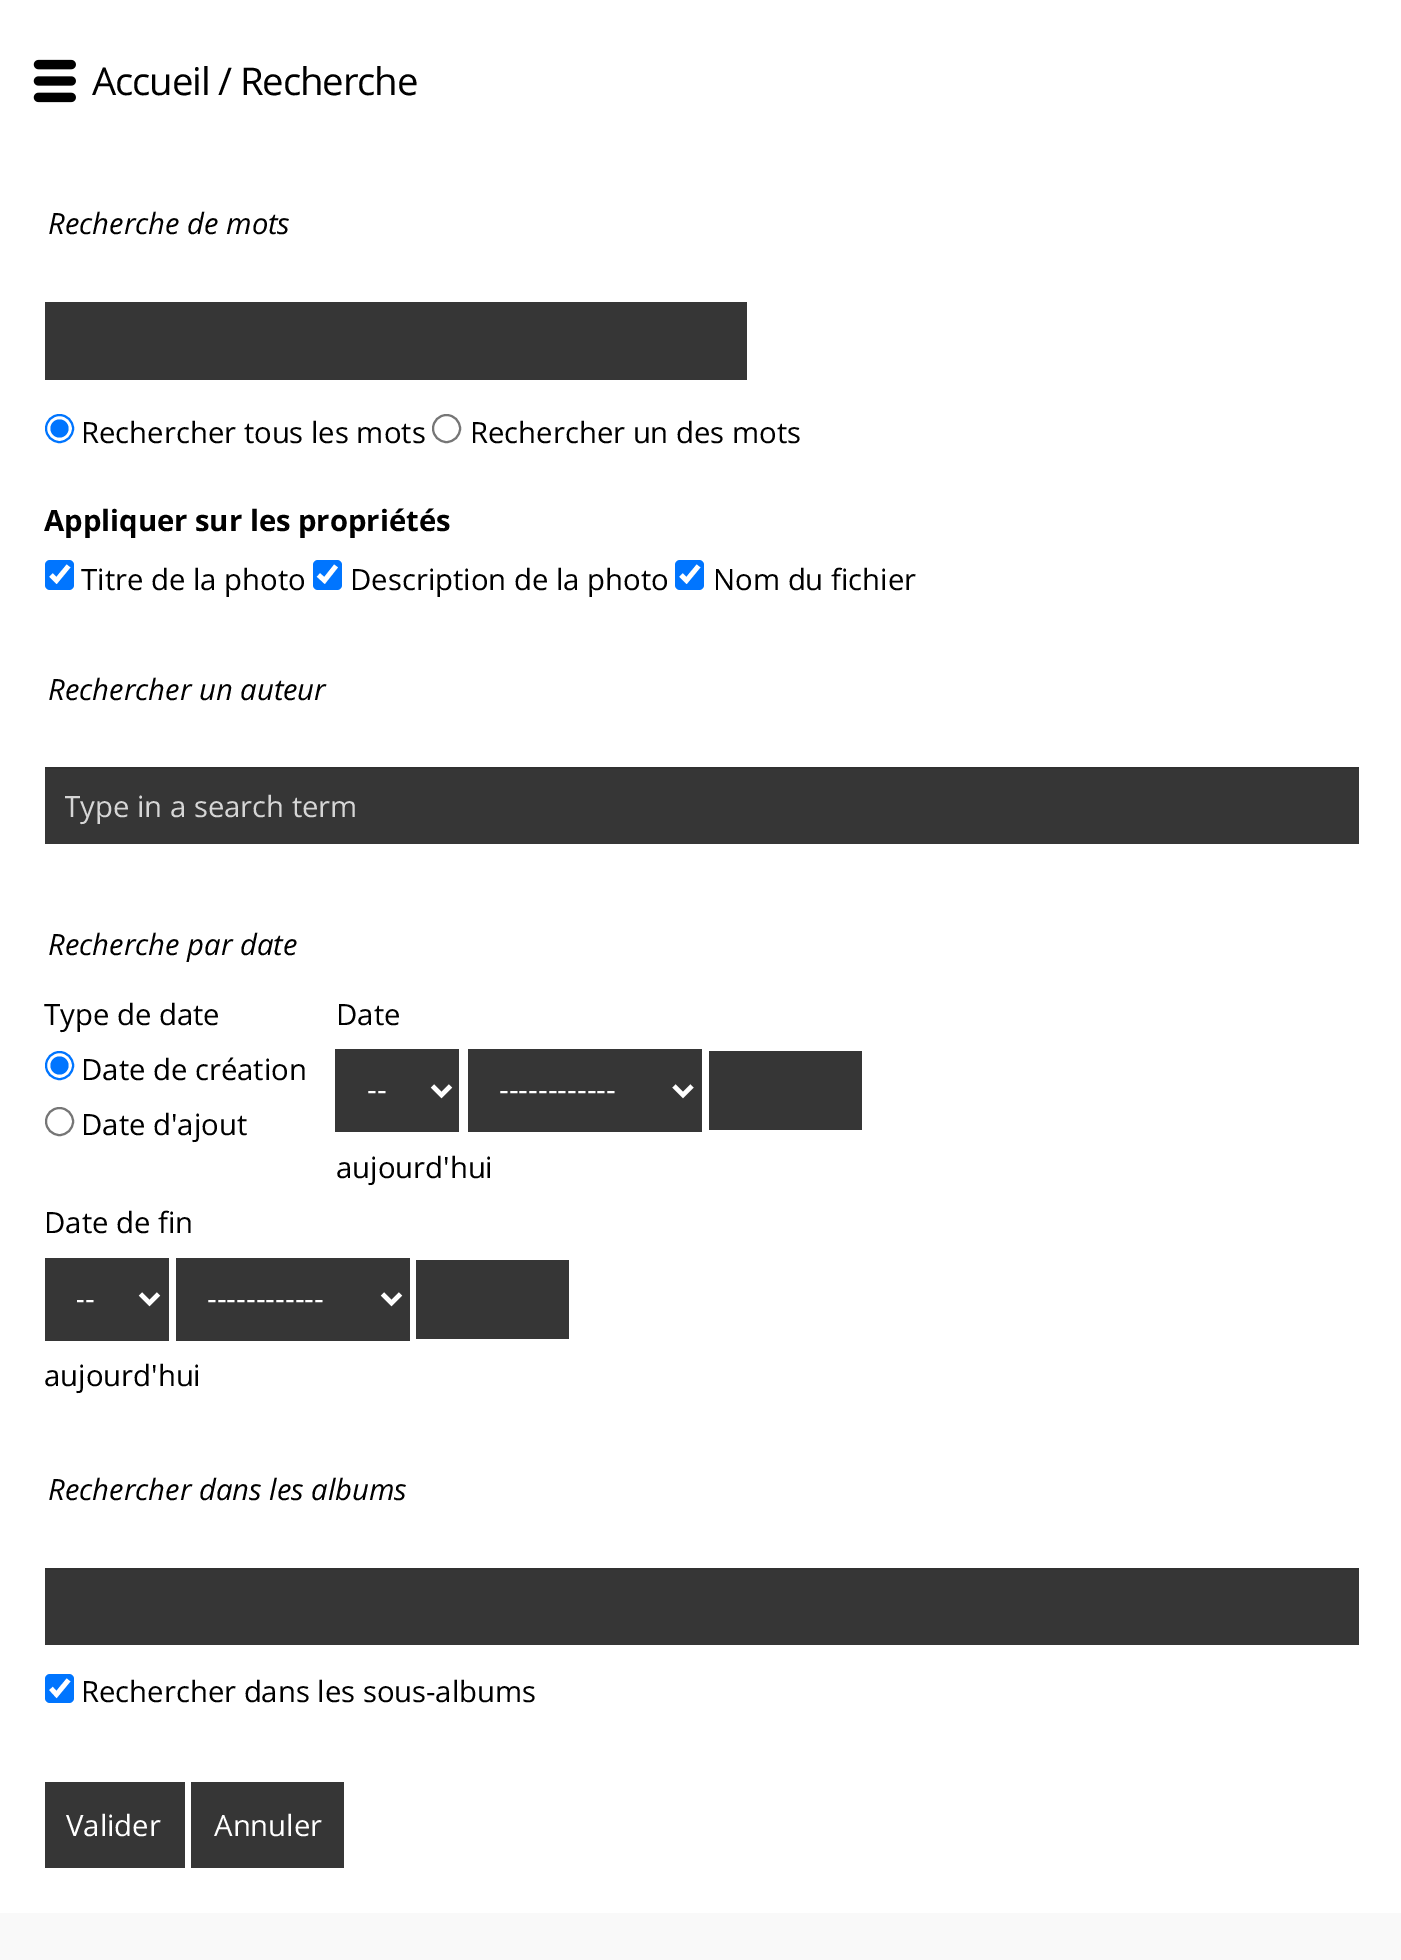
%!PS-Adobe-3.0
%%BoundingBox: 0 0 1401 1960
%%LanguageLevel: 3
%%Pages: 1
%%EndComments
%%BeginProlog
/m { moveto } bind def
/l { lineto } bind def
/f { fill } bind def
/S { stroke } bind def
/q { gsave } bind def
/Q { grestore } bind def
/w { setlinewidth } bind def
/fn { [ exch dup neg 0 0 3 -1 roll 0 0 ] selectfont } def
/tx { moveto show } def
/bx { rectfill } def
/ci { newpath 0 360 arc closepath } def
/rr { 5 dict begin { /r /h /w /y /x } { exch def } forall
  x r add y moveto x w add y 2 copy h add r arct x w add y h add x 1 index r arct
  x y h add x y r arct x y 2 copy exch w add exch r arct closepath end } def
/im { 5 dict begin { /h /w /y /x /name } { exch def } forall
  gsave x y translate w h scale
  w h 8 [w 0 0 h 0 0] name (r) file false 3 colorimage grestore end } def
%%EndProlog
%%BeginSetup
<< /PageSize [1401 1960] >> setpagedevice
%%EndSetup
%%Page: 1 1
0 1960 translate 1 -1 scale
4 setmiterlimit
1 setgray
0 0 1401 1960 bx
(image0.raw) 33 59 43 44 im
/OpenSans-Regular 38.25 fn
0 setgray
92 95 m -1.1 0 (Accueil / Recherche) ashow
/OpenSans-Italic 29.25 fn
(Recherche de mots) 48 234 tx
0.212 setgray
45 302 702 78 bx
0 0.459 1 setrgbcolor
2 w
59.5 428.5 13.5 ci S
59.5 428.5 9 ci f
/OpenSans-Regular 29.25 fn
0 setgray
(Rechercher tous les mots) 81 443 tx
0.463 setgray
446.5 428.5 13.5 ci S
0 setgray
(Rechercher un des mots) 470 443 tx
/OpenSans-Bold 29.25 fn
(Appliquer sur les propriétés) 44 531 tx
0 0.459 1 setrgbcolor
45 560 29 30 5 rr f
1 setgray
4.7 w
51 575 m 56.5 580.5 l 68.5 566 l S
/OpenSans-Regular 29.25 fn
0 setgray
(Titre de la photo) 81 590 tx
0 0.459 1 setrgbcolor
313 560 29 30 5 rr f
1 setgray
318.5 575 m 324.5 580.5 l 336 566 l S
0 setgray
(Description de la photo) 350 590 tx
0 0.459 1 setrgbcolor
675 560 29 30 5 rr f
1 setgray
681 575 m 686.5 580.5 l 698.5 566 l S
0 setgray
(Nom du fichier) 713 590 tx
/OpenSans-Italic 29.25 fn
(Rechercher un auteur) 48 700 tx
0.212 setgray
45 769 1314 75 bx
0.192 setgray
45 767 1314 2 bx
q
65 785 304 41 rectclip
/OpenSans-Regular 29.25 fn
0.839 setgray
(Type in a search term) 64 817 tx
Q
0 setgray
(Recherche par date) 48 955 tx
/OpenSans-Regular 29.25 fn
(Type de date) 44 1025 tx
0 0.459 1 setrgbcolor
2 w
59.5 1065.5 13.5 ci S
59.5 1065.5 9 ci f
0 setgray
(Date de création) 81 1080 tx
0.463 setgray
59.5 1121.5 13.5 ci S
0 setgray
(Date d'ajout) 81 1135 tx
(Date) 336 1025 tx
0.212 setgray
335 1049 124 83 bx
1 setgray
4.5 w
432.5 1086 m 441.5 1095 l 450.5 1086 l S
/LiberationSans-Regular 29.25 fn
(--) 367 1100 tx
0.212 setgray
468 1049 234 83 bx
1 setgray
674 1086 m 683 1095 l 692 1086 l S
(------------) 499 1100 tx
0.212 setgray
709 1051 153 79 bx
/OpenSans-Regular 29.25 fn
0 setgray
(aujourd'hui) 336 1178 tx
(Date de fin) 44 1233 tx
0.212 setgray
45 1258 124 83 bx
1 setgray
140.5 1294 m 149.5 1303 l 158.5 1294 l S
q
77 1280 33 39 rectclip
/LiberationSans-Regular 29.25 fn
(--) 75 1309 tx
Q
0.212 setgray
176 1258 234 83 bx
1 setgray
382.5 1294 m 391.5 1303 l 400.5 1294 l S
/LiberationSans-Regular 29.25 fn
(------------) 207 1309 tx
0.212 setgray
416 1260 153 79 bx
/OpenSans-Regular 29.25 fn
0 setgray
(aujourd'hui) 44 1386 tx
/OpenSans-Italic 29.25 fn
(Rechercher dans les albums) 48 1500 tx
0.212 setgray
45 1570 1314 75 bx
0.192 setgray
45 1568 1314 2 bx
0 0.459 1 setrgbcolor
45 1674 29 29 5 rr f
1 setgray
4.7 w
51 1688.5 m 56.5 1694.5 l 68.5 1680 l S
/OpenSans-Regular 29.25 fn
0 setgray
(Rechercher dans les sous-albums) 81 1702 tx
0.212 setgray
45 1782 140 86 bx
1 setgray
(Valider) 66 1836 tx
0.212 setgray
191 1782 153 86 bx
1 setgray
(Annuler) 214 1836 tx
0.976 setgray
0 1913 1401 47 bx
showpage
%%EOF
